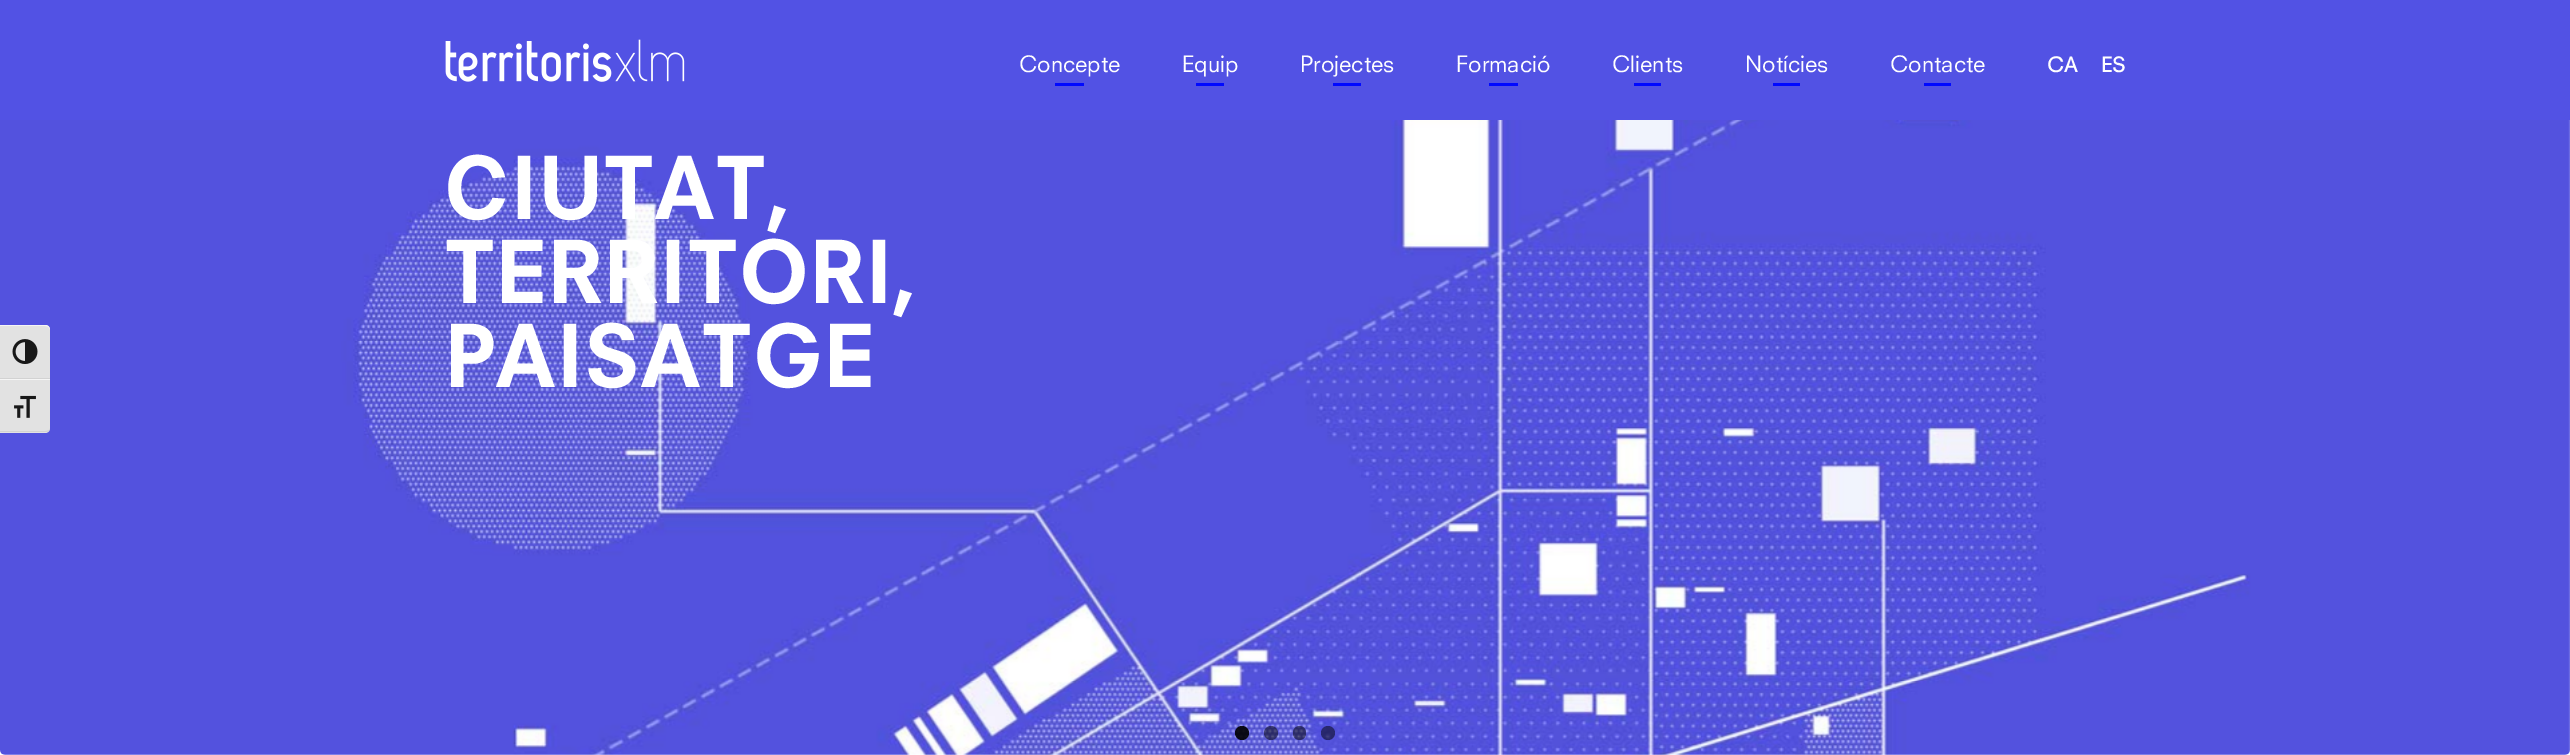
%!PS-Adobe-3.0
%%BoundingBox: 0 0 2570 755
%%LanguageLevel: 3
%%Pages: 1
%%EndComments
%%BeginProlog
/m { moveto } bind def
/l { lineto } bind def
/c { curveto } bind def
/h { closepath } bind def
/f { fill } bind def
/fn { [ exch dup neg 0 0 3 -1 roll 0 0 ] selectfont } def
/tx { moveto show } def
/bx { rectfill } def
/al { dup .setfillconstantalpha .setstrokeconstantalpha } def
/ci { newpath 0 360 arc closepath } def
/rr { 5 dict begin { /r /h /w /y /x } { exch def } forall
  x r add y moveto x w add y 2 copy h add r arct x w add y h add x 1 index r arct
  x y h add x y r arct x y 2 copy exch w add exch r arct closepath end } def
/im { 5 dict begin { /h /w /y /x /name } { exch def } forall
  gsave x y translate w h scale
  w h 8 [w 0 0 h 0 0] name (r) file false 3 colorimage grestore end } def
%%EndProlog
%%BeginSetup
<< /PageSize [2570 755] /PageUsesTransparency true >> setpagedevice
%%EndSetup
%%Page: 1 1
0 .pushpdf14devicefilter
0 755 translate 1 -1 scale
4 setmiterlimit
1 setgray
0 0 2570 755 bx
(image3.raw) 0 120 2570 635 im
0.886 setgray
0 325 m 45 325 l 48 325 50 327 50 330 c 50 379 l 0 379 l h f
0.961 setgray
0 325 m 0 326 l 45 326 l 48 326 50 328 50 330 c 50 327 48 325 45 325 c h f
0.824 setgray
0 378 50 1 bx
(image0.raw) 12 339 26 25 im
0.886 setgray
0 379 m 50 379 l 50 428 l 50 431 48 433 45 433 c 0 433 l h f
0.961 setgray
0 379 50 1 bx
0.824 setgray
0 431 m 0 432 l 45 432 l 48 432 50 430 50 428 c 50 430 48 431 45 431 c h f
(image1.raw) 14 395 22 23 im
0.322 0.322 0.894 setrgbcolor
0 0 2570 120 bx
(image2.raw) 445 39 240 43 im
/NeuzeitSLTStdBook-Regular 22 fn
1 setgray
(Concepte) 1019 72 tx
0 0.035 1 setrgbcolor
1055 83 29 3 bx
1 setgray
(Equip) 1182 72 tx
0 0.035 1 setrgbcolor
1196 83 28 3 bx
1 setgray
(Projectes) 1300 72 tx
0 0.035 1 setrgbcolor
1333 83 28 3 bx
1 setgray
(Formació) 1456 72 tx
0 0.035 1 setrgbcolor
1489 83 29 3 bx
1 setgray
(Clients) 1612 72 tx
0 0.035 1 setrgbcolor
1634 83 27 3 bx
1 setgray
(Notícies) 1745 72 tx
0 0.035 1 setrgbcolor
1773 83 27 3 bx
1 setgray
(Contacte) 1890 72 tx
0 0.035 1 setrgbcolor
1924 83 27 3 bx
/NeuzeitSLTStdBook-Bold 20 fn
1 setgray
(CA) 2047 72 tx
(ES) 2101 72 tx
/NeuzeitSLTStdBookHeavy-Regular 84.25 fn
(CIUTAT,) 444 219 tx
(TERRITORI,) 444 303 tx
(PAISATGE) 444 387 tx
0.9 al
0 setgray
1242 733 7 ci f
0.5 al
1271 733 7 ci f
1293 726 13 14 6.5 rr f
1328 733 7 ci f
.poppdf14devicefilter showpage
%%EOF
